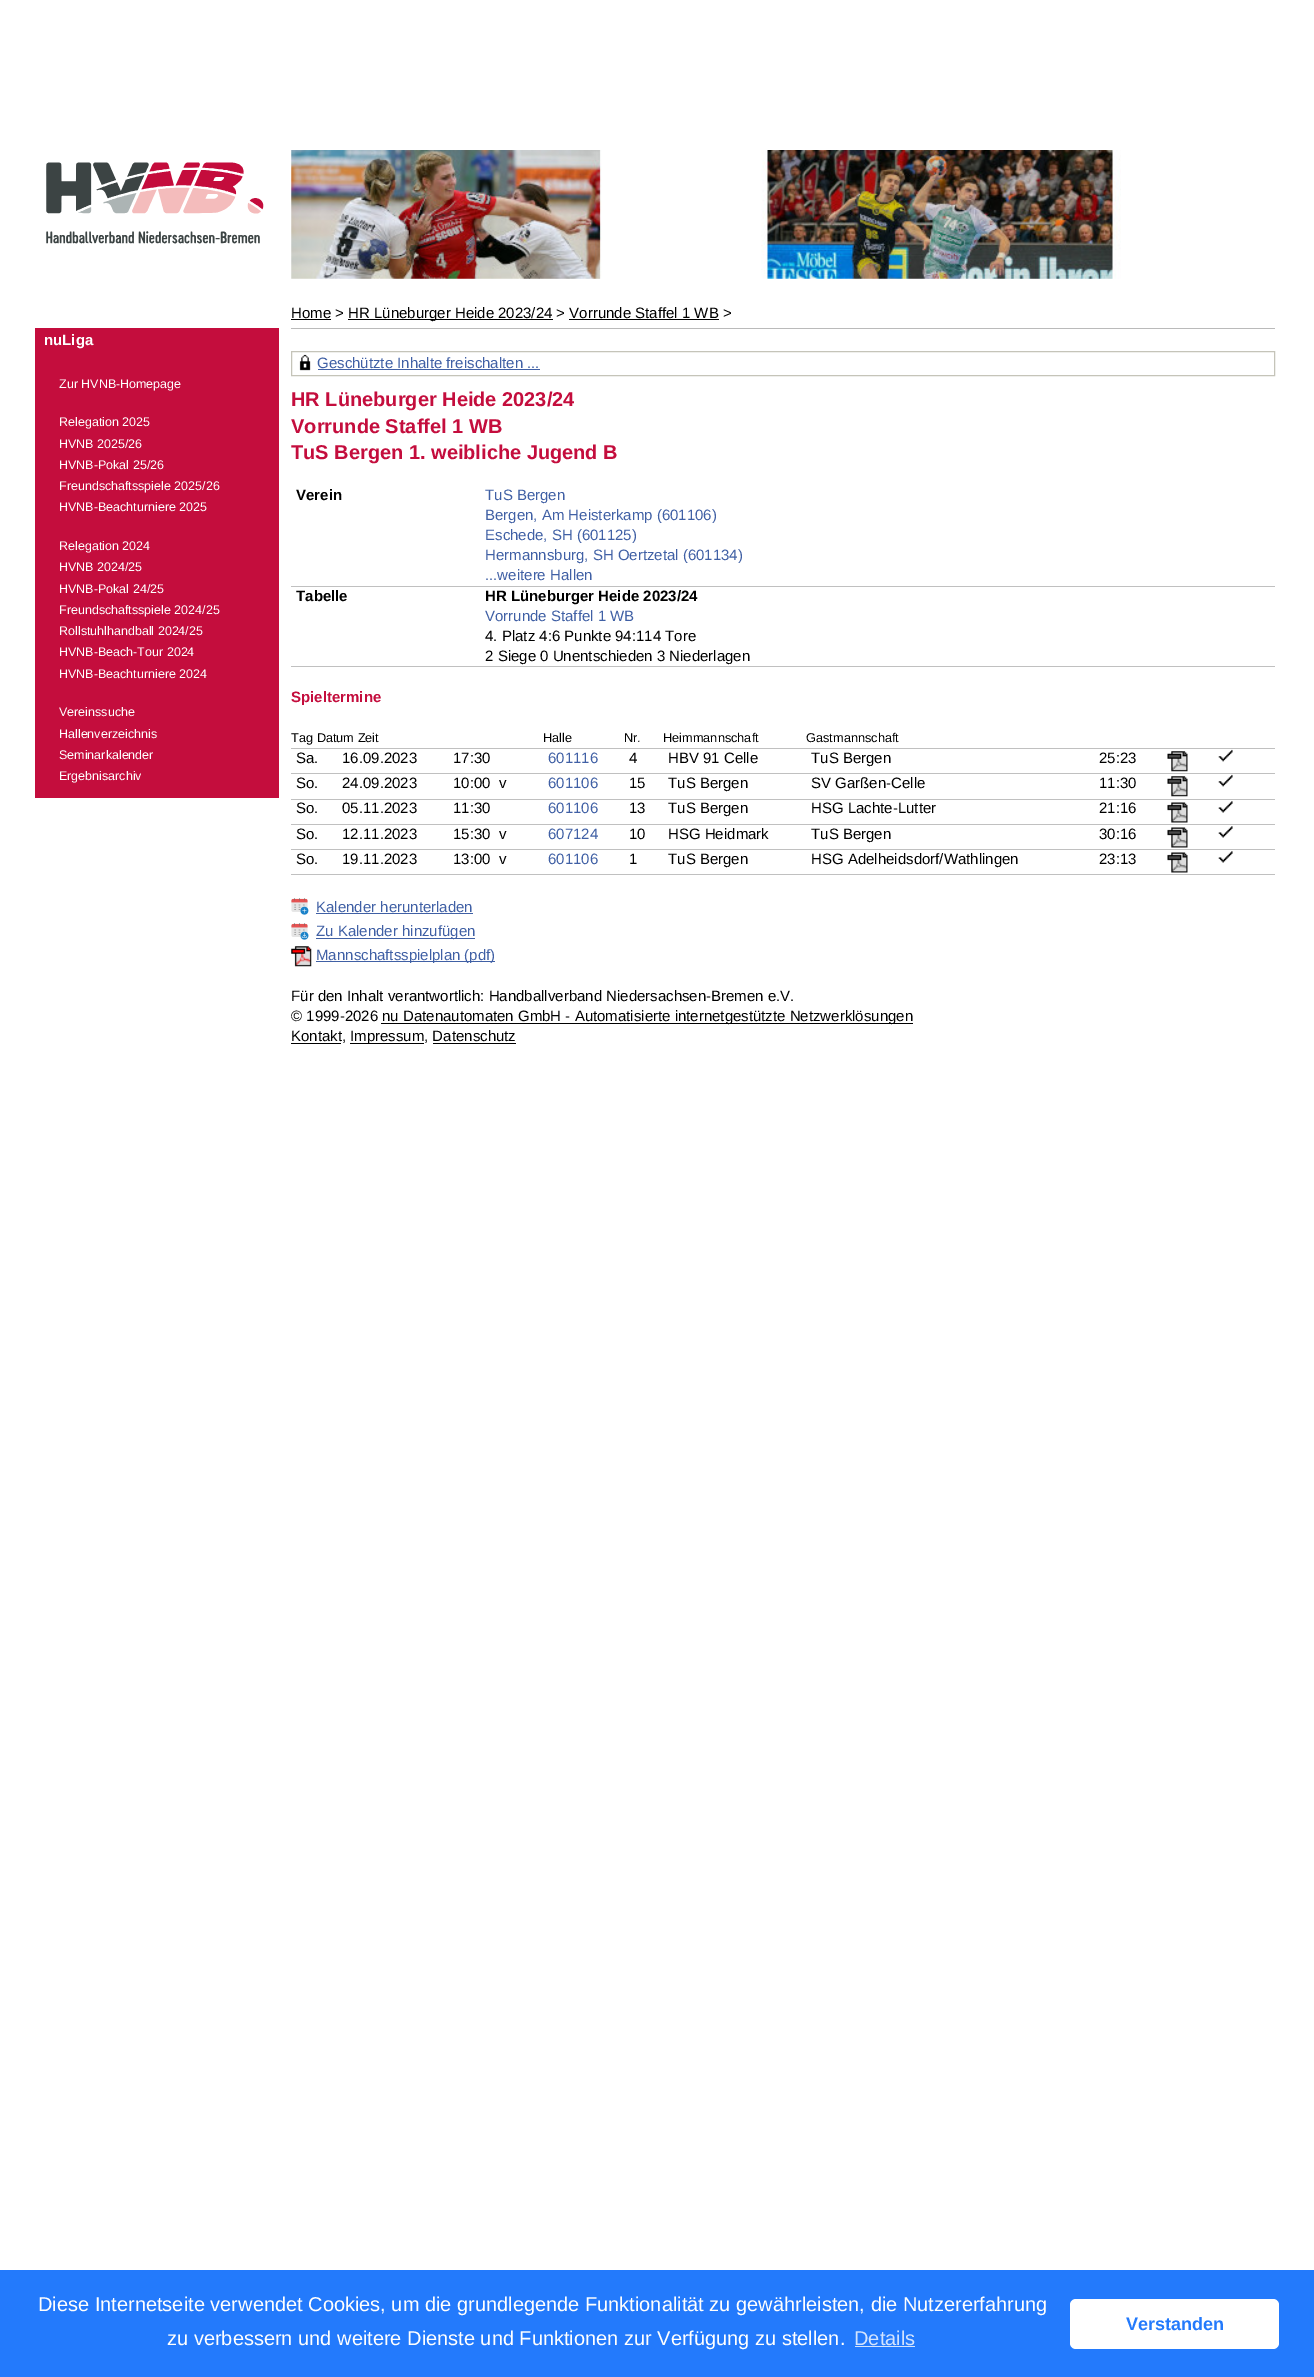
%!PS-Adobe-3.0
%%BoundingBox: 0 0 1314 2377
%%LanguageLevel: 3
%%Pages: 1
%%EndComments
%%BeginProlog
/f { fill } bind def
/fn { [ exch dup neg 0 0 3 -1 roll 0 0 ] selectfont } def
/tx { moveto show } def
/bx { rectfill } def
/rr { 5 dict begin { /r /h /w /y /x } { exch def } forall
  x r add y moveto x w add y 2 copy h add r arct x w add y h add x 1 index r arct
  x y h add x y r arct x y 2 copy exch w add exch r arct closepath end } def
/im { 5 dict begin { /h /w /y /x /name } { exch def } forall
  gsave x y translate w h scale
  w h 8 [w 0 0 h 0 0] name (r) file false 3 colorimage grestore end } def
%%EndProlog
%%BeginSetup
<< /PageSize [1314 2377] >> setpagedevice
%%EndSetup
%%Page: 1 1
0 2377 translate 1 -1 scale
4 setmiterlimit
1 setgray
0 0 1314 2377 bx
(image0.raw) 291 150 830 129 im
(image1.raw) 46 162 218 82 im
0.729 setgray
291 328 984 1 bx
/LiberationSans-Regular 15 fn
0 setgray
(Home >) 291 318 tx
291 319 40 1 bx
348 319 205 1 bx
(HR Lüneburger Heide 2023/24 > Vorrunde Staffel 1 WB >) 348 318 tx
569 319 150 1 bx
0.769 0.051 0.239 setrgbcolor
35 328 244 470 bx
/LiberationSans-Bold 15 fn
1 setgray
(nuLiga) 44 345 tx
/LiberationSans-Regular 12.5 fn
(Zur HVNB-Homepage) 59 388 tx
(Relegation 2025) 59 426 tx
(HVNB 2025/26) 59 448 tx
(HVNB-Pokal 25/26) 59 469 tx
(Freundschaftsspiele 2025/26) 59 490 tx
(HVNB-Beachturniere 2025) 59 511 tx
(Relegation 2024) 59 550 tx
(HVNB 2024/25) 59 571 tx
(HVNB-Pokal 24/25) 59 593 tx
(Freundschaftsspiele 2024/25) 59 614 tx
(Rollstuhlhandball 2024/25) 59 635 tx
(HVNB-Beach-Tour 2024) 59 656 tx
(HVNB-Beachturniere 2024) 59 678 tx
(Vereinssuche) 59 716 tx
(Hallenverzeichnis) 59 738 tx
(Seminarkalender) 59 759 tx
(Ergebnisarchiv) 59 780 tx
0.773 0.769 0.725 setrgbcolor
291.5 351.5 983 24 rectstroke
(image2.raw) 299 354 12 17 im
/LiberationSans-Regular 15 fn
0.251 0.376 0.647 setrgbcolor
(Geschützte Inhalte freischalten ...) 317 368 tx
318 369 222 1 bx
/LiberationSans-Bold 20 fn
0.769 0.051 0.239 setrgbcolor
(HR Lüneburger Heide 2023/24) 291 406 tx
(Vorrunde Staffel 1 WB) 291 433 tx
(TuS Bergen 1. weibliche Jugend B) 291 459 tx
0.753 setgray
291 586 984 1 bx
/LiberationSans-Bold 15 fn
0 setgray
(Verein) 296 500 tx
/LiberationSans-Regular 15 fn
0.251 0.376 0.647 setrgbcolor
(TuS Bergen) 485 500 tx
(Bergen, Am Heisterkamp \(601106\)) 485 520 tx
(Eschede, SH \(601125\)) 485 540 tx
(Hermannsburg, SH Oertzetal \(601134\)) 485 560 tx
(...weitere Hallen) 485 580 tx
0.753 setgray
291 666 984 1 bx
/LiberationSans-Bold 15 fn
0 setgray
(Tabelle) 296 601 tx
(HR Lüneburger Heide 2023/24) 485 601 tx
/LiberationSans-Regular 15 fn
0.251 0.376 0.647 setrgbcolor
(Vorrunde Staffel 1 WB) 485 621 tx
0 setgray
(4. Platz 4:6 Punkte 94:114 Tore) 485 641 tx
(2 Siege 0 Unentschieden 3 Niederlagen) 485 661 tx
/LiberationSans-Bold 15 fn
0.769 0.051 0.239 setrgbcolor
(Spieltermine) 291 702 tx
0.753 setgray
291 748 984 1 bx
/LiberationSans-Regular 12.75 fn
0 setgray
(Tag Datum Zeit) 291 742 tx
(Halle) 543 742 tx
(Nr.) 624 742 tx
(Heimmannschaft) 663 742 tx
(Gastmannschaft) 806 742 tx
0.753 setgray
291 773 984 1 bx
/LiberationSans-Regular 15 fn
0 setgray
(Sa.) 296 763 tx
(16.09.2023) 342 763 tx
(17:30) 453 763 tx
0.251 0.376 0.647 setrgbcolor
(601116) 548 763 tx
0 setgray
(4) 629 763 tx
(HBV 91 Celle) 668 763 tx
(TuS Bergen) 811 763 tx
(25:23) 1099 763 tx
(image3.raw) 1167 751 21 21 im
(image4.raw) 1218 749 15 13 im
0.753 setgray
291 799 984 1 bx
0 setgray
(So.) 296 788 tx
(24.09.2023) 342 788 tx
(10:00) 453 788 tx
(v) 499 788 tx
0.251 0.376 0.647 setrgbcolor
(601106) 548 788 tx
0 setgray
(15) 629 788 tx
(TuS Bergen) 668 788 tx
(SV Garßen-Celle) 811 788 tx
(11:30) 1099 788 tx
(image5.raw) 1167 776 21 21 im
(image6.raw) 1218 774 15 13 im
0.753 setgray
291 824 984 1 bx
0 setgray
(So.) 296 813 tx
(05.11.2023) 342 813 tx
(11:30) 453 813 tx
0.251 0.376 0.647 setrgbcolor
(601106) 548 813 tx
0 setgray
(13) 629 813 tx
(TuS Bergen) 668 813 tx
(HSG Lachte-Lutter) 811 813 tx
(21:16) 1099 813 tx
(image7.raw) 1167 802 21 21 im
(image8.raw) 1218 801 15 12 im
0.753 setgray
291 849 984 1 bx
0 setgray
(So.) 296 839 tx
(12.11.2023) 342 839 tx
(15:30) 453 839 tx
(v) 499 839 tx
0.251 0.376 0.647 setrgbcolor
(607124) 548 839 tx
0 setgray
(10) 629 839 tx
(HSG Heidmark) 668 839 tx
(TuS Bergen) 811 839 tx
(30:16) 1099 839 tx
(image7.raw) 1167 827 21 21 im
(image8.raw) 1218 826 15 12 im
0.753 setgray
291 874 984 1 bx
0 setgray
(So.) 296 864 tx
(19.11.2023) 342 864 tx
(13:00) 453 864 tx
(v) 499 864 tx
0.251 0.376 0.647 setrgbcolor
(601106) 548 864 tx
0 setgray
(1) 629 864 tx
(TuS Bergen) 668 864 tx
(HSG Adelheidsdorf/Wathlingen) 811 864 tx
(23:13) 1099 864 tx
(image7.raw) 1167 852 21 21 im
(image8.raw) 1218 851 15 12 im
(image9.raw) 291 898 18 17 im
0.251 0.376 0.647 setrgbcolor
(Kalender herunterladen) 316 912 tx
316 913 157 1 bx
(image10.raw) 291 923 18 17 im
316 938 159 1 bx
(Zu Kalender hinzufügen) 316 936 tx
(image11.raw) 291 946 21 21 im
316 961 179 1 bx
(Mannschaftsspielplan \(pdf\)) 316 960 tx
0 setgray
(Für den Inhalt verantwortlich: Handballverband Niedersachsen-Bremen e.V.) 291 1001 tx
(© 1999-2026) 291 1021 tx
381 1023 532 1 bx
(nu Datenautomaten GmbH - Automatisierte internetgestützte Netzwerklösungen) 382 1021 tx
(Kontakt,) 291 1041 tx
291 1043 50 1 bx
350 1043 74 1 bx
(Impressum, Datenschutz) 350 1041 tx
433 1043 83 1 bx
0.137 0.478 0.988 setrgbcolor
0 2270 1314 107 bx
/LiberationSans-Regular 20 fn
1 setgray
(Diese Internetseite verwendet Cookies, um die grundlegende Funktionalität zu gewährleisten, die Nutzererfahrung) 38 2311 tx
(zu verbessern und weitere Dienste und Funktionen zur Verfügung zu stellen.) 167 2345 tx
0.827 0.894 0.996 setrgbcolor
(Details) 854 2345 tx
855 2346 60 1 bx
1 setgray
1070 2299 209 50 6 rr f
/LiberationSans-Bold 18 fn
0.137 0.478 0.988 setrgbcolor
(Verstanden) 1126 2330 tx
showpage
%%EOF
